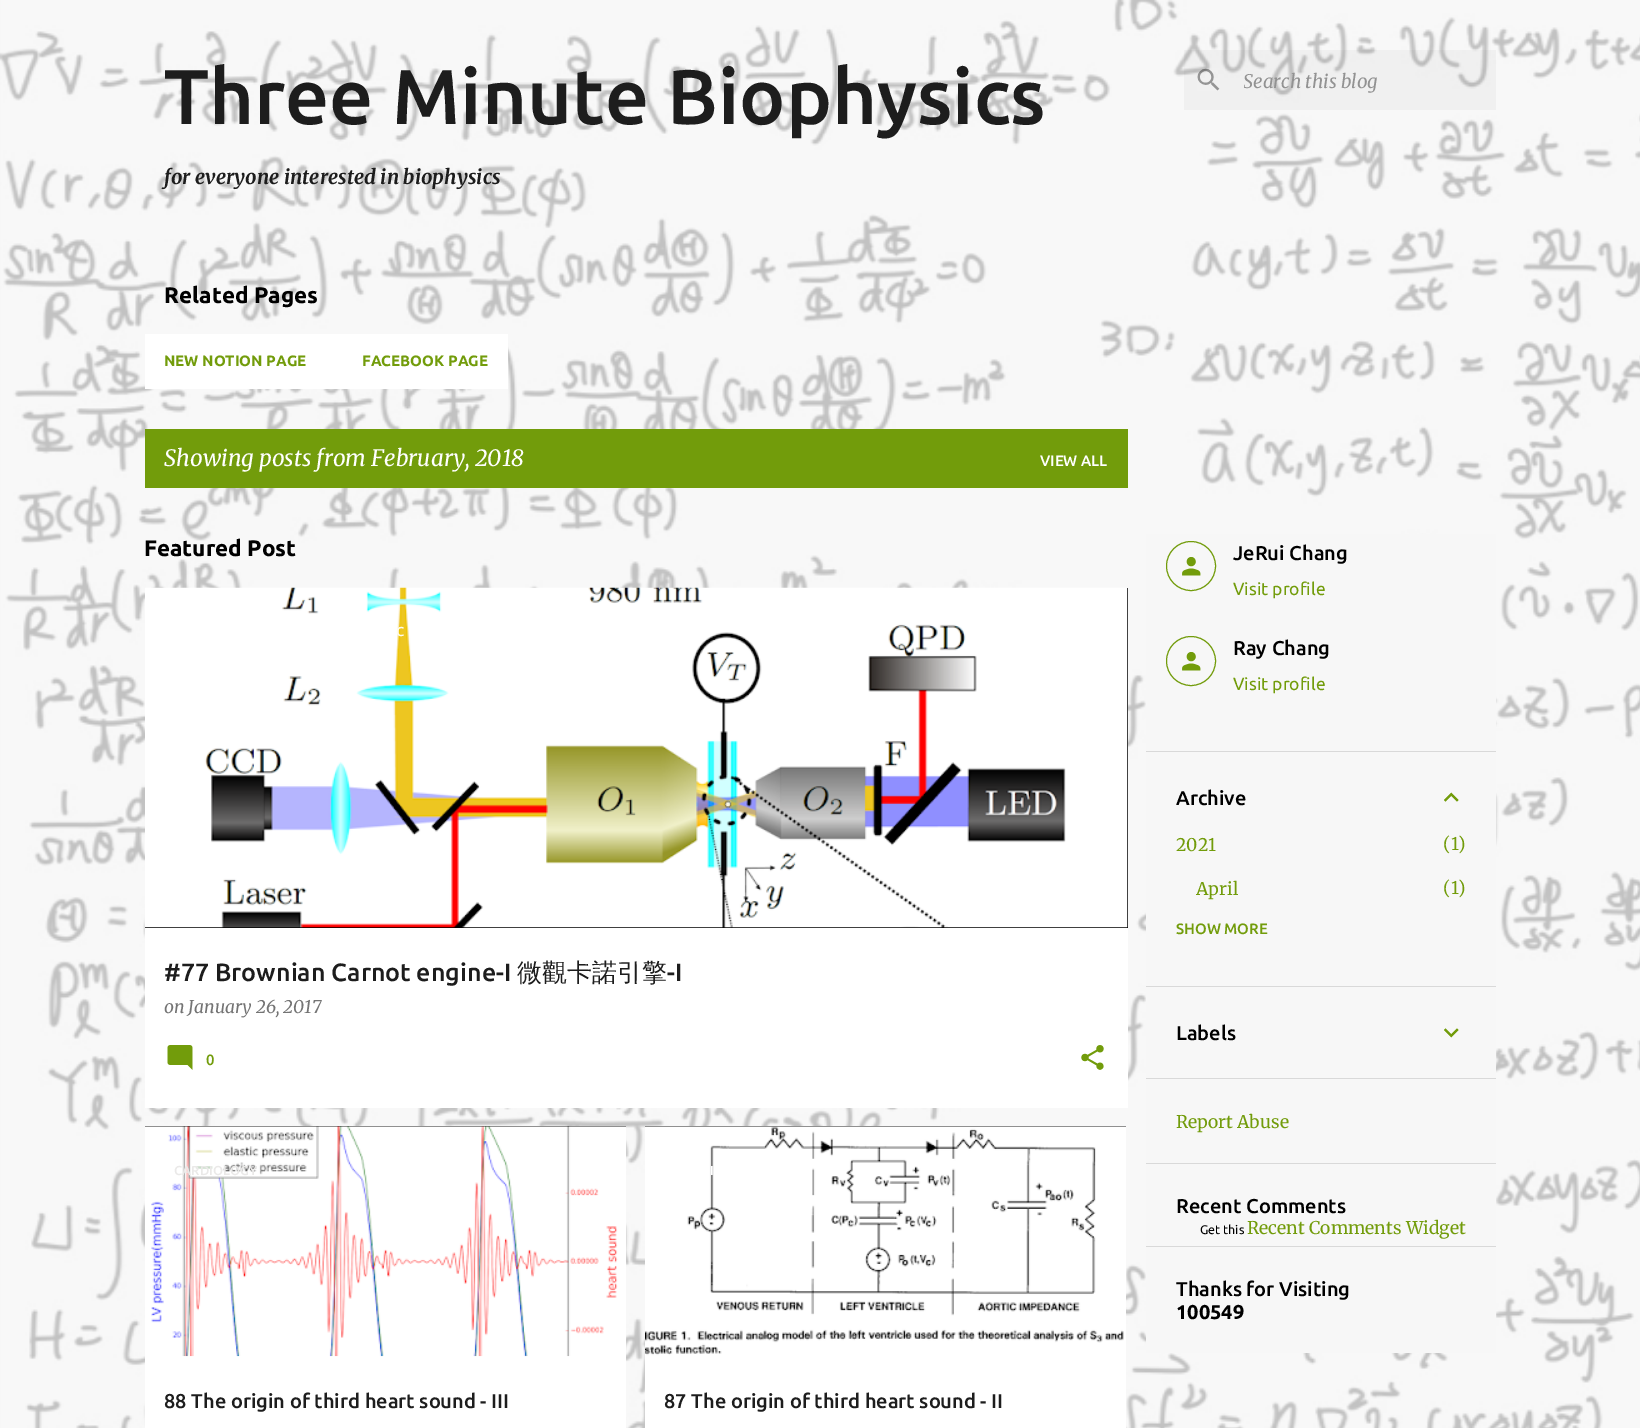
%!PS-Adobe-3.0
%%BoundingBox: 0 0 1640 1428
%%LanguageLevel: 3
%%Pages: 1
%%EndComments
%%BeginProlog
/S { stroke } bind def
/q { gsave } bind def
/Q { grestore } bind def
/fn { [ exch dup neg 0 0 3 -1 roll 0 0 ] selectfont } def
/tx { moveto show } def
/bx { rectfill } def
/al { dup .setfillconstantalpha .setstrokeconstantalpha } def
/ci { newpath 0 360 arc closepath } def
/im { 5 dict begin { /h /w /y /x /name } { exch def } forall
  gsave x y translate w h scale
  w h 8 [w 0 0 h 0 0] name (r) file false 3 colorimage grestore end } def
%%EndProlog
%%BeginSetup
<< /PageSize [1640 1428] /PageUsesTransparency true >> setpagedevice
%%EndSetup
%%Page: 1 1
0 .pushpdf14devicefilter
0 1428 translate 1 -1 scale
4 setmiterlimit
0.965 setgray
0 0 1640 1428 bx
(image0.raw) 0 0 1640 1428 im
/Ubuntu-Medium 77.5 fn
0.114 setgray
(Three Minute Biophysics) 164 124 tx
/Merriweather-BoldItalic 20 fn
(for everyone interested in biophysics) 164 184 tx
0.03 al
0 setgray
1184 50 312 60 bx
1 al
(image1.raw) 1197 68 23 23 im
q
1244 69 242 24 rectclip
/Merriweather-Italic 18.75 fn
0.573 setgray
(Search this blog) 1243 88 tx
Q
/Ubuntu-Bold 22.5 fn
(Related Pages) 164 303 tx
1 setgray
145 334 363 55 bx
/Ubuntu-Bold 15 fn
0.447 0.612 0.043 setrgbcolor
(NEW NOTION PAGE) 164 366 tx
(FACEBOOK PAGE) 362 366 tx
145 429 983 59 bx
/Merriweather-Italic 22.5 fn
1 setgray
(Showing posts from February, 2018) 164 466 tx
/Ubuntu-Medium 15 fn
(VIEW ALL) 1040 466 tx
/Ubuntu-Bold 22.5 fn
0 setgray
(Featured Post) 144 556 tx
1 setgray
145 928 983 180 bx
0 setgray
145 588 983 340 bx
(image2.raw) 145 587 983 341 im
/Ubuntu-Medium 13 fn
0.996 0.984 0.933 setrgbcolor
(C) 396 636 tx
/Merriweather-Italic 17.5 fn
0.455 setgray
(on January 26, 2017) 164 1013 tx
/Ubuntu-Medium 25 fn
0.114 setgray
(#77 Brownian Carnot engine-I) 164 981 tx
/WenQuanYiZenHei-Medium 25 fn
(微觀卡諾引擎) 517 981 tx
/Ubuntu-Medium 25 fn
(-I) 667 981 tx
(image3.raw) 167 1045 26 25 im
/Ubuntu-Medium 15 fn
0.447 0.612 0.043 setrgbcolor
(0) 206 1065 tx
(image4.raw) 1081 1045 23 25 im
1 setgray
145 1356 481 72 bx
0 setgray
145 1126 481 1 bx
(image5.raw) 145 1126 481 231 im
/Ubuntu-Medium 13 fn
0.918 0.914 0.91 setrgbcolor
(CARDIOLOGY) 174 1175 tx
/Ubuntu-Medium 20 fn
0.114 setgray
(88 The origin of third heart sound - III) 164 1408 tx
1 setgray
645 1356 481 72 bx
0 setgray
645 1126 481 1 bx
(image6.raw) 645 1126 481 230 im
/Ubuntu-Medium 13 fn
1 setgray
(I) 710 1175 tx
/Ubuntu-Medium 20 fn
0.114 setgray
(87 The origin of third heart sound - II) 664 1408 tx
0.969 setgray
1146 534 350 819 bx
0.447 0.612 0.043 setrgbcolor
1191 566 24.5 ci S
(image7.raw) 1182 557 19 19 im
0 setgray
(JeRui Chang) 1233 560 tx
/Ubuntu-Regular 17.5 fn
0.447 0.612 0.043 setrgbcolor
(Visit profile) 1233 595 tx
1191 661 24.5 ci S
(image7.raw) 1182 652 19 19 im
/Ubuntu-Medium 20 fn
0 setgray
(Ray Chang) 1233 655 tx
/Ubuntu-Regular 17.5 fn
0.447 0.612 0.043 setrgbcolor
(Visit profile) 1233 690 tx
0.851 setgray
1146 751 350 1 bx
/Ubuntu-Medium 20 fn
0 setgray
(Archive) 1176 805 tx
(image8.raw) 1444 792 15 10 im
/Merriweather-Light 17.5 fn
0.447 0.612 0.043 setrgbcolor
(2021) 1176 851 tx
(\(1\)) 1443 850 tx
(April) 1196 895 tx
(\(1\)) 1443 894 tx
/Ubuntu-Medium 15 fn
(SHOW MORE) 1176 934 tx
0.851 setgray
1146 986 350 1 bx
/Ubuntu-Medium 20 fn
0 setgray
(Labels) 1176 1040 tx
(image9.raw) 1444 1028 15 10 im
0.851 setgray
1146 1078 350 1 bx
/Merriweather-Light 17.5 fn
0.447 0.612 0.043 setrgbcolor
(Report Abuse) 1176 1128 tx
0.851 setgray
1146 1163 350 1 bx
/Ubuntu-Medium 20 fn
0 setgray
(Recent Comments) 1176 1213 tx
/Ubuntu-Regular 12.5 fn
(Get this) 1200 1234 tx
/Merriweather-Light 17.5 fn
0.447 0.612 0.043 setrgbcolor
(Recent Comments Widget) 1247 1234 tx
0.851 setgray
1146 1246 350 1 bx
/Ubuntu-Medium 20 fn
0 setgray
(Thanks for Visiting) 1176 1296 tx
/Ubuntu-Bold 20 fn
(100549) 1176 1319 tx
.poppdf14devicefilter showpage
%%EOF
